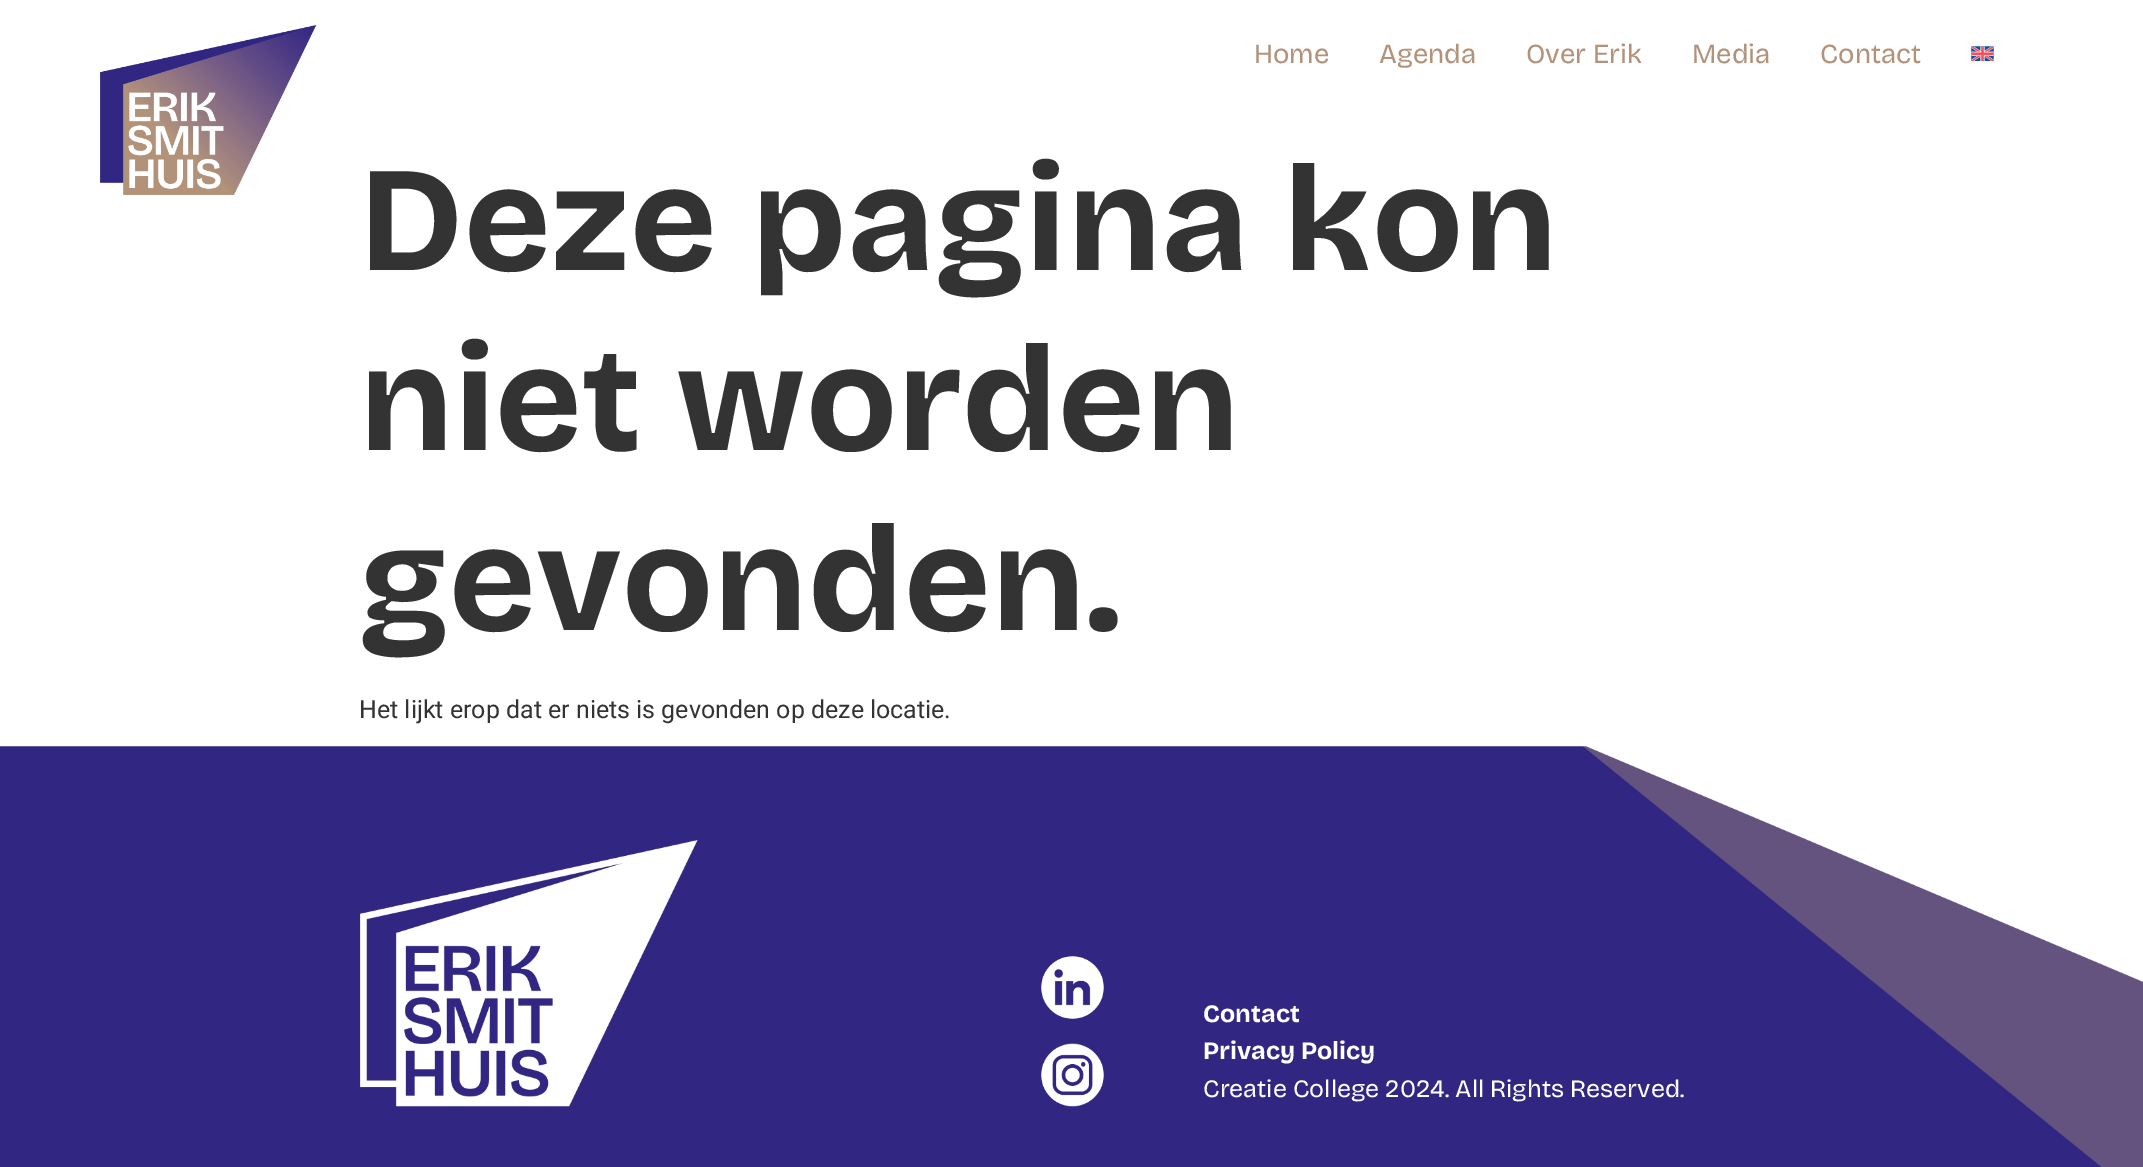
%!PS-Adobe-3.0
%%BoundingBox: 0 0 2143 1167
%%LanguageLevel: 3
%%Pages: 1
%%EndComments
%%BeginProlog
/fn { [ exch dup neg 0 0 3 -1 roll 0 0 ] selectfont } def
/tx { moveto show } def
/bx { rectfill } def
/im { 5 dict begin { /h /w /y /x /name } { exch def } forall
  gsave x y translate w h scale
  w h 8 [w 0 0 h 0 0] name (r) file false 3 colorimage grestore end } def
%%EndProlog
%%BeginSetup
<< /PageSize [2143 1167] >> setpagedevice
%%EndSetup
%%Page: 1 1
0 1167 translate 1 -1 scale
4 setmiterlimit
1 setgray
0 0 2143 1167 bx
(image0.raw) 100 25 217 170 im
/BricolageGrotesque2-Regular 27.5 fn
0.698 0.573 0.478 setrgbcolor
(Home) 1254 63 tx
(Agenda) 1379 63 tx
(Over Erik) 1526 63 tx
(Media) 1692 63 tx
(Contact) 1820 63 tx
(image1.raw) 1971 46 23 15 im
/BricolageGrotesque-Bold 150 fn
0.2 setgray
(Deze pagina kon) 359 270 tx
(niet worden) 359 450 tx
(gevonden.) 359 630 tx
/Roboto-Regular 25 fn
(Het lijkt erop dat er niets is gevonden op deze locatie.) 359 718 tx
(image2.raw) 0 746 2143 421 im
(image3.raw) 360 840 338 267 im
(image4.raw) 1041 956 63 63 im
(image5.raw) 1041 1043 63 64 im
/BricolageGrotesque-Bold 25 fn
1 setgray
(Contact) 1203 1022 tx
(Privacy Policy) 1203 1059 tx
/BricolageGrotesque-Regular 25 fn
(Creatie College 2024. All Rights Reserved.) 1203 1097 tx
showpage
%%EOF
